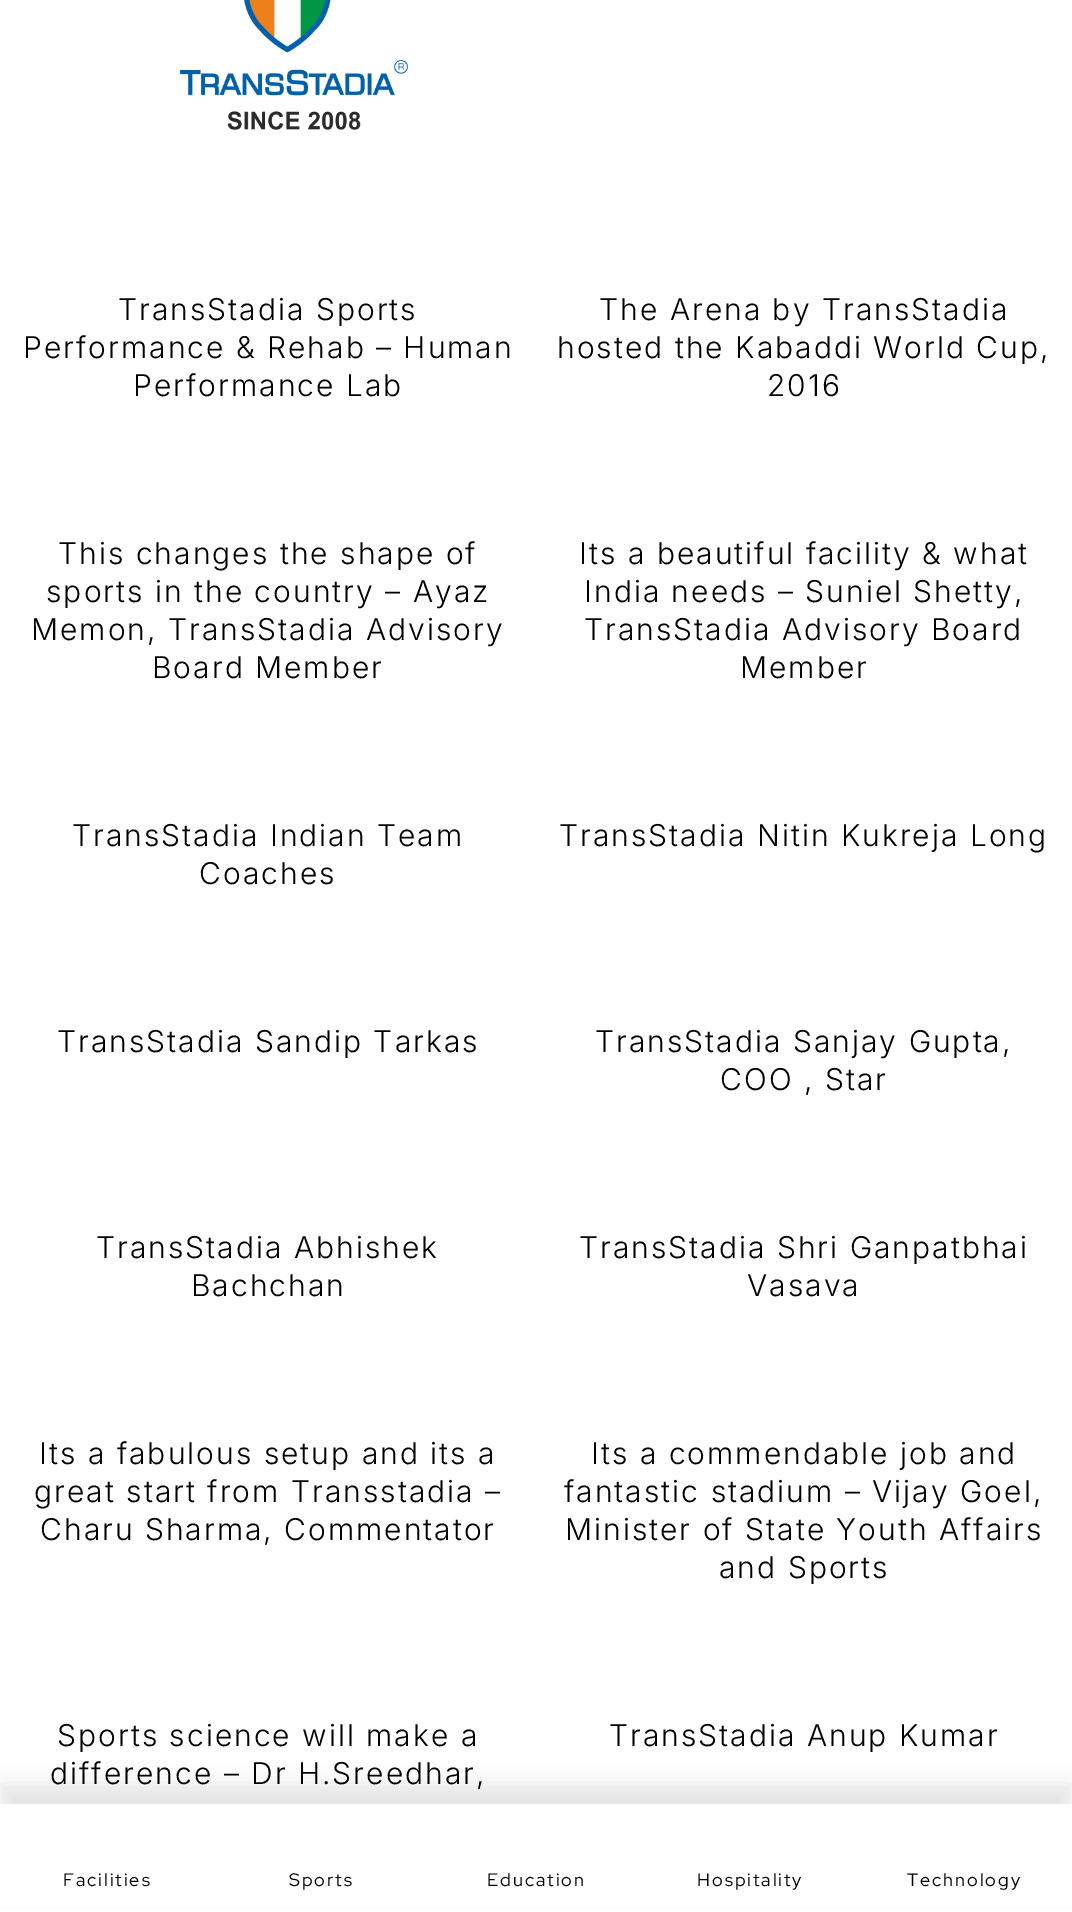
%!PS-Adobe-3.0
%%BoundingBox: 0 0 1072 1912
%%LanguageLevel: 3
%%Pages: 1
%%EndComments
%%BeginProlog
/m { moveto } bind def
/fn { [ exch dup neg 0 0 3 -1 roll 0 0 ] selectfont } def
/bx { rectfill } def
/al { dup .setfillconstantalpha .setstrokeconstantalpha } def
/rr { 5 dict begin { /r /h /w /y /x } { exch def } forall
  x r add y moveto x w add y 2 copy h add r arct x w add y h add x 1 index r arct
  x y h add x y r arct x y 2 copy exch w add exch r arct closepath end } def
/sh { 12 dict begin { /a /b /q /h /w /y /x } { exch def } forall gsave /was 0 def
  9 -2 -9 { dup b mul 4 div /e exch def 1 sub .425 mul 2.718 exch exp 1 add a .99 .min exch div /now exch def
    1 1 now sub 1 was sub div sub al /was now def
    w h .min e 2 mul add 0 gt { x e sub y e sub w e 2 mul add h e 2 mul add
      q e add b .6 mul add w h .min 2 div e add .min 0 .max rr fill } if } for grestore end } def
/im { 5 dict begin { /h /w /y /x /name } { exch def } forall
  gsave x y translate w h scale
  w h 8 [w 0 0 h 0 0] name (r) file false 3 colorimage grestore end } def
%%EndProlog
%%BeginSetup
<< /PageSize [1072 1912] /PageUsesTransparency true >> setpagedevice
%%EndSetup
%%Page: 1 1
0 .pushpdf14devicefilter
0 1912 translate 1 -1 scale
4 setmiterlimit
1 setgray
0 0 1072 1912 bx
(image0.raw) 180 0 228 130 im
/Inter-Light 30 fn
0 setgray
118 320 m 2 0 (TransStadia Sports) ashow
23 358 m 2 0 (Performance & Rehab – Human) ashow
133 396 m 2 0 (Performance Lab) ashow
599 320 m 2 0 (The Arena by TransStadia) ashow
557 358 m 2 0 (hosted the Kabaddi World Cup,) ashow
767 396 m 2 0 (2016) ashow
58 564 m 2 0 (This changes the shape of) ashow
46 602 m 2 0 (sports in the country – Ayaz) ashow
31 640 m 2 0 (Memon, TransStadia Advisory) ashow
152 678 m 2 0 (Board Member) ashow
579 564 m 2 0 (Its a beautiful facility & what) ashow
584 602 m 2 0 (India needs – Suniel Shetty,) ashow
584 640 m 2 0 (TransStadia Advisory Board) ashow
740 678 m 2 0 (Member) ashow
72 846 m 2 0 (TransStadia Indian Team) ashow
199 884 m 2 0 (Coaches) ashow
559 846 m 2 0 (TransStadia Nitin Kukreja Long) ashow
57 1052 m 2 0 (TransStadia Sandip Tarkas) ashow
595 1052 m 2 0 (TransStadia Sanjay Gupta,) ashow
720 1090 m 2 0 (COO , Star) ashow
96 1258 m 2 0 (TransStadia Abhishek) ashow
191 1296 m 2 0 (Bachchan) ashow
579 1258 m 2 0 (TransStadia Shri Ganpatbhai) ashow
747 1296 m 2 0 (Vasava) ashow
39 1464 m 2 0 (Its a fabulous setup and its a) ashow
34 1502 m 2 0 (great start from Transstadia –) ashow
40 1540 m 2 0 (Charu Sharma, Commentator) ashow
591 1464 m 2 0 (Its a commendable job and) ashow
564 1502 m 2 0 (fantastic stadium – Vijay Goel,) ashow
565 1540 m 2 0 (Minister of State Youth Affairs) ashow
719 1578 m 2 0 (and Sports) ashow
57 1746 m 2 0 (Sports science will make a) ashow
50 1784 m 2 0 (difference – Dr H.Sreedhar,) ashow
609 1746 m 2 0 (TransStadia Anup Kumar) ashow
0 1784 1072 108 0 10 0.1 sh
1 setgray
0 1804 1072 101 bx
/RedHatDisplay-Regular 18 fn
0 setgray
63 1886 m 2 0 (Facilities) ashow
289 1886 m 2 0 (Sports) ashow
487 1886 m 2 0 (Education) ashow
697 1886 m 2 0 (Hospitality) ashow
907 1886 m 2 0 (Technology) ashow
.poppdf14devicefilter showpage
%%EOF
